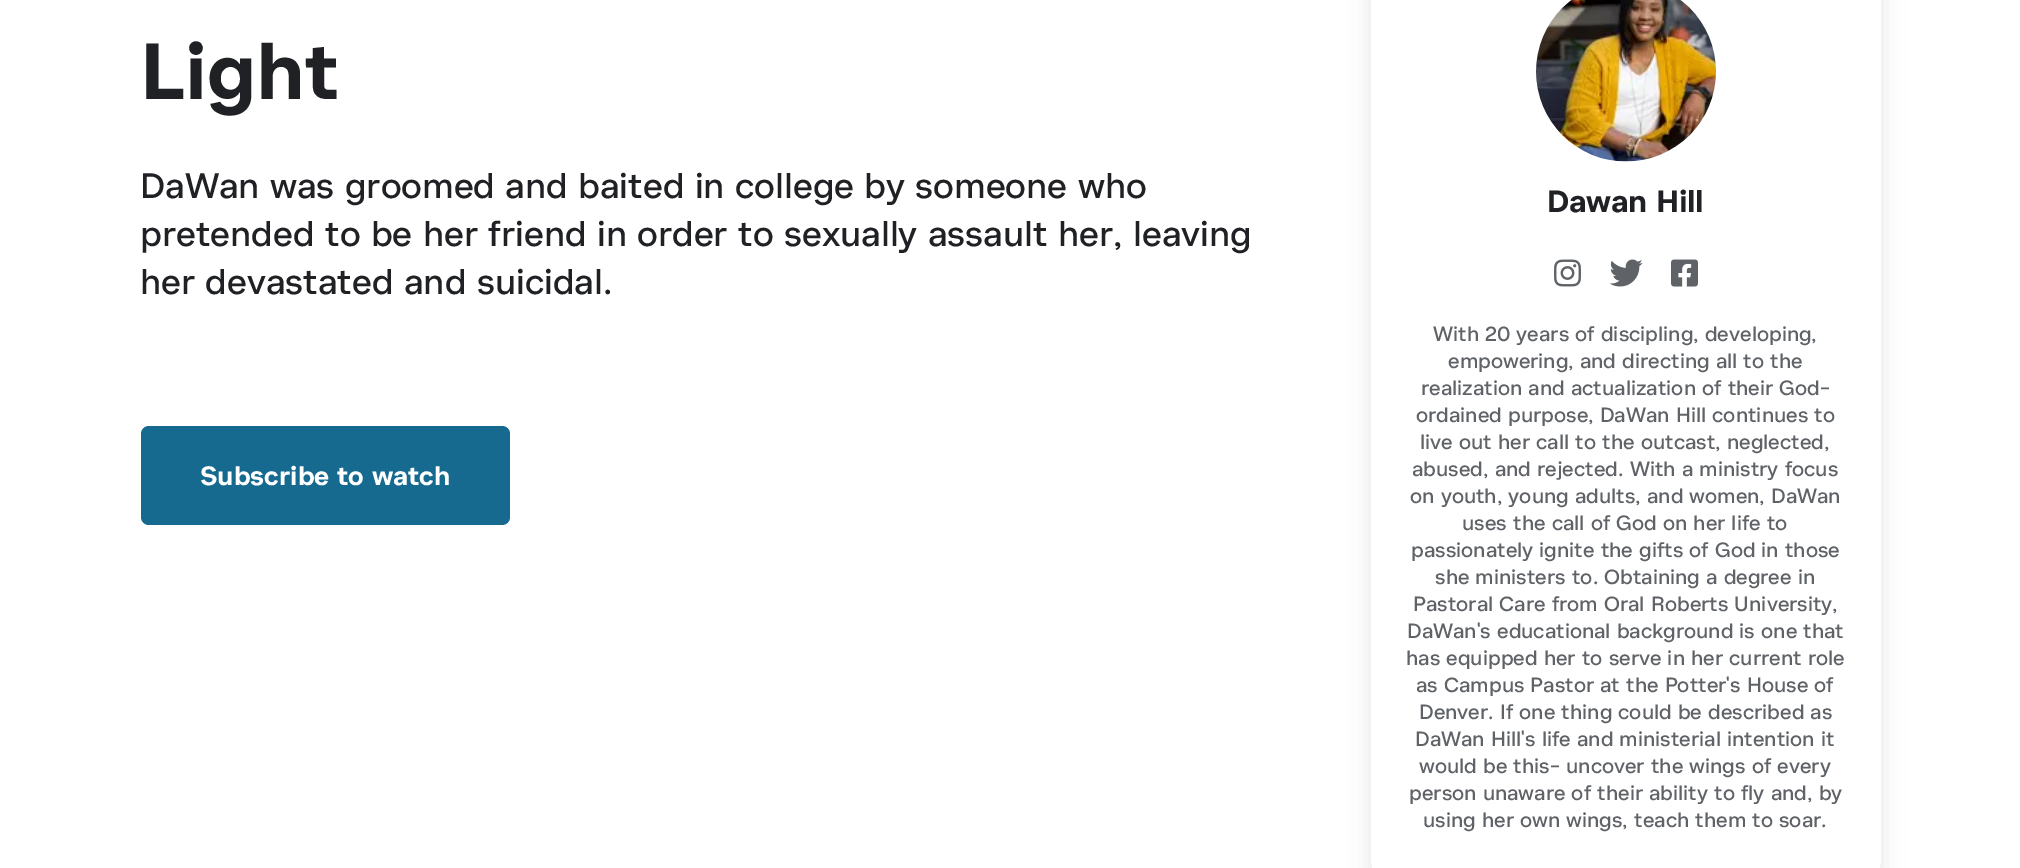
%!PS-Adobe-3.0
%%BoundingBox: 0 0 2020 868
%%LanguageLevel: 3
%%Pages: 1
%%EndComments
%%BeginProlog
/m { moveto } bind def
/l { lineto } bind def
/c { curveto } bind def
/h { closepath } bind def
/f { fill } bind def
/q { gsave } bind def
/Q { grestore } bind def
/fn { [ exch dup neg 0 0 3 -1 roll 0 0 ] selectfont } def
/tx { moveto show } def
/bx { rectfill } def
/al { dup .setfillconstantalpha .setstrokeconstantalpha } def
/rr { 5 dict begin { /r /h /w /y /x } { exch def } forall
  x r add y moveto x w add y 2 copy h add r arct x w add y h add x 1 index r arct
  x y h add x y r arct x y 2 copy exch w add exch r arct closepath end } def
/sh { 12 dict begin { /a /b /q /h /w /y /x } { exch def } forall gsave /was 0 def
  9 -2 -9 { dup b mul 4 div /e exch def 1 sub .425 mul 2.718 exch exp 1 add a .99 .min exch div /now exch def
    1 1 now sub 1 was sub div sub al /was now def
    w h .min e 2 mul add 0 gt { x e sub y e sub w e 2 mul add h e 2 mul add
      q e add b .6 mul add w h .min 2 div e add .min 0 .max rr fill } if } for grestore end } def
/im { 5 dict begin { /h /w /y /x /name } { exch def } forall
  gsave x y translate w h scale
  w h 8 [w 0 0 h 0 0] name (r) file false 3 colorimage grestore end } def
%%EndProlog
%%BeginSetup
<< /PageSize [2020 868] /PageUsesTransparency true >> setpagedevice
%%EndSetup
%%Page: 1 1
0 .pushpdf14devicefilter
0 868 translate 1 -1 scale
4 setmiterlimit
1 setgray
0 0 2020 868 bx
/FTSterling-Bold 81 fn
0.125 0.129 0.141 setrgbcolor
(Light) 140 99 tx
/FTSterling-Medium 36 fn
(DaWan was groomed and baited in college by someone who) 140 198 tx
(pretended to be her friend in order to sexually assault her, leaving) 140 246 tx
(her devastated and suicidal.) 140 294 tx
0.086 0.416 0.561 setrgbcolor
141 426 369 99 8 rr f
/FTSterling-Bold 27 fn
1 setgray
(Subscribe to watch) 200 485 tx
q
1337 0 m 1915 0 l 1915 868 l 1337 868 l h 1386 -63 m 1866 -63 l 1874.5 -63 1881 -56.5 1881 -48 c 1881 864 l 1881 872.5 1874.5 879 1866 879 c 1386 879 l 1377.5 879 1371 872.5 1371 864 c 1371 -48 l 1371 -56.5 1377.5 -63 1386 -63 c h eoclip newpath
0 setgray
1371 -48 510 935 15 11 0.1 sh
Q
(image0.raw) 1536 0 180 162 im
/FTSterling-Bold 31.5 fn
0.125 0.129 0.141 setrgbcolor
1547 212 m -0.25 0 (Dawan Hill) ashow
(image1.raw) 1554 259 27 28 im
(image2.raw) 1609 259 34 28 im
(image3.raw) 1671 259 27 28 im
/FTSterling-Medium 21 fn
0.373 0.388 0.408 setrgbcolor
(With 20 years of discipling, developing,) 1433 341 tx
(empowering, and directing all to the) 1448 368 tx
(realization and actualization of their God-) 1421 395 tx
(ordained purpose, DaWan Hill continues to) 1416 422 tx
(live out her call to the outcast, neglected,) 1420 449 tx
(abused, and rejected. With a ministry focus) 1412 476 tx
(on youth, young adults, and women, DaWan) 1410 503 tx
(uses the call of God on her life to) 1462 530 tx
(passionately ignite the gifts of God in those) 1411 557 tx
(she ministers to. Obtaining a degree in) 1435 584 tx
(Pastoral Care from Oral Roberts University,) 1413 611 tx
(DaWan's educational background is one that) 1407 638 tx
(has equipped her to serve in her current role) 1406 665 tx
(as Campus Pastor at the Potter's House of) 1416 692 tx
(Denver. If one thing could be described as) 1419 719 tx
(DaWan Hill's life and ministerial intention it) 1415 746 tx
(would be this- uncover the wings of every) 1419 773 tx
(person unaware of their ability to fly and, by) 1409 800 tx
(using her own wings, teach them to soar.) 1423 827 tx
.poppdf14devicefilter showpage
%%EOF
